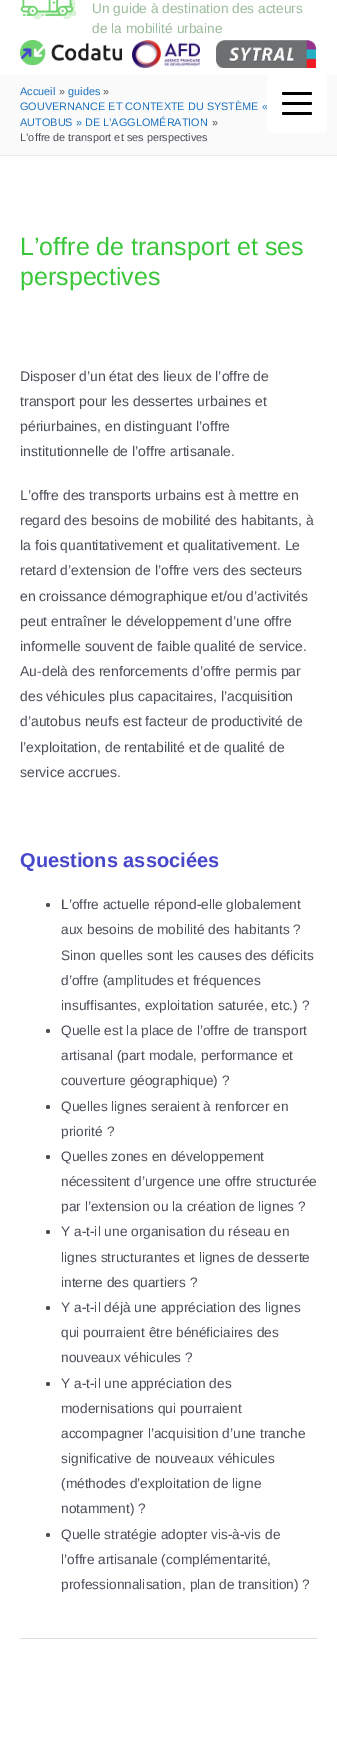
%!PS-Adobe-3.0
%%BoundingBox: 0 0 337 1758
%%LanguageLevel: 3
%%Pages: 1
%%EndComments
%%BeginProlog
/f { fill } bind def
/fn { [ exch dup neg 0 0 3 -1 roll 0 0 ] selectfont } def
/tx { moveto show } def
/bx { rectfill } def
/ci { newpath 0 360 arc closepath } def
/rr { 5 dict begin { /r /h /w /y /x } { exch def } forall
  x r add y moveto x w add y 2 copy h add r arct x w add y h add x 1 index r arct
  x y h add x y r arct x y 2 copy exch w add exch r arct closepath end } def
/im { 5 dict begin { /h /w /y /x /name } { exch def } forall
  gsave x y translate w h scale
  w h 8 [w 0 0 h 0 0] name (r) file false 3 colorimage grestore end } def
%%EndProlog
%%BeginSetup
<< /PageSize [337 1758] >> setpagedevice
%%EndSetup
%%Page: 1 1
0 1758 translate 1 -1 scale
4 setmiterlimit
1 setgray
0 0 337 1758 bx
(image0.raw) 20 0 57 20 im
/LiberationSans-Regular 13.7 fn
0.612 0.733 0.612 setrgbcolor
(Un guide à destination des acteurs) 92 13 tx
(de la mobilité urbaine) 92 33 tx
(image1.raw) 20 40 102 25 im
(image2.raw) 132 40 68 28 im
(image3.raw) 216 40 100 28 im
0.98 setgray
0 74 337 81 bx
0.918 setgray
0 155 337 1 bx
/LiberationSans-Regular 10.9 fn
0.118 0.451 0.745 setrgbcolor
(Accueil) 20 95 tx
0.294 0.31 0.345 setrgbcolor
(») 59 95 tx
0.118 0.451 0.745 setrgbcolor
(guides) 68 95 tx
0.294 0.31 0.345 setrgbcolor
(») 103 95 tx
0.118 0.451 0.745 setrgbcolor
(GOUVERNANCE ET CONTEXTE DU SYSTÈME «) 20 110 tx
(AUTOBUS » DE L’AGGLOMÉRATION) 20 126 tx
0.294 0.31 0.345 setrgbcolor
(») 212 126 tx
(L’offre de transport et ses perspectives) 20 141 tx
/LiberationSans-Regular 25 fn
0.224 0.78 0.224 setrgbcolor
(L’offre de transport et ses) 20 255 tx
(perspectives) 20 285 tx
/LiberationSans-Regular 14 fn
0.294 0.31 0.345 setrgbcolor
(Disposer d’un état des lieux de l’offre de) 20 381 tx
(transport pour les dessertes urbaines et) 20 406 tx
(périurbaines, en distinguant l’offre) 20 431 tx
(institutionnelle de l’offre artisanale.) 20 456 tx
(L’offre des transports urbains est à mettre en) 20 500 tx
(regard des besoins de mobilité des habitants, à) 20 525 tx
(la fois quantitativement et qualitativement. Le) 20 550 tx
(retard d’extension de l’offre vers des secteurs) 20 575 tx
(en croissance démographique et/ou d’activités) 20 601 tx
(peut entraîner le développement d’une offre) 20 626 tx
(informelle souvent de faible qualité de service.) 20 651 tx
(Au-delà des renforcements d’offre permis par) 20 676 tx
(des véhicules plus capacitaires, l’acquisition) 20 701 tx
(d’autobus neufs est facteur de productivité de) 20 726 tx
(l’exploitation, de rentabilité et de qualité de) 20 752 tx
(service accrues.) 20 777 tx
/LiberationSans-Bold 20 fn
0.278 0.278 0.788 setrgbcolor
(Questions associées) 20 867 tx
0.294 0.31 0.345 setrgbcolor
48 905 2 ci f
/LiberationSans-Regular 13.7 fn
(L’offre actuelle répond-elle globalement) 61 909 tx
(aux besoins de mobilité des habitants ?) 61 934 tx
(Sinon quelles sont les causes des déficits) 61 960 tx
(d’offre \(amplitudes et fréquences) 61 985 tx
(insuffisantes, exploitation saturée, etc.\) ?) 61 1010 tx
48 1031 2 ci f
(Quelle est la place de l’offre de transport) 61 1035 tx
(artisanal \(part modale, performance et) 61 1060 tx
(couverture géographique\) ?) 61 1085 tx
48 1107 2 ci f
(Quelles lignes seraient à renforcer en) 61 1111 tx
(priorité ?) 61 1136 tx
48 1157 2 ci f
(Quelles zones en développement) 61 1161 tx
(nécessitent d’urgence une offre structurée) 61 1186 tx
(par l’extension ou la création de lignes ?) 61 1211 tx
48 1232 2 ci f
(Y a-t-il une organisation du réseau en) 61 1236 tx
(lignes structurantes et lignes de desserte) 61 1262 tx
(interne des quartiers ?) 61 1287 tx
48 1308 2 ci f
(Y a-t-il déjà une appréciation des lignes) 61 1312 tx
(qui pourraient être bénéficiaires des) 61 1337 tx
(nouveaux véhicules ?) 61 1362 tx
48 1384 2 ci f
(Y a-t-il une appréciation des) 61 1388 tx
(modernisations qui pourraient) 61 1413 tx
(accompagner l’acquisition d’une tranche) 61 1438 tx
(significative de nouveaux véhicules) 61 1463 tx
(\(méthodes d’exploitation de ligne) 61 1488 tx
(notamment\) ?) 61 1513 tx
48 1535 2 ci f
(Quelle stratégie adopter vis-à-vis de) 61 1539 tx
(l’offre artisanale \(complémentarité,) 61 1564 tx
(professionnalisation, plan de transition\) ?) 61 1589 tx
0.867 setgray
20 1638 297 1 bx
1 setgray
267 73 60 60 5 rr f
0 setgray
282 102 30 3 1.5 rr f
282 92 30 3 1.5 rr f
282 112 30 3 1.5 rr f
showpage
%%EOF
